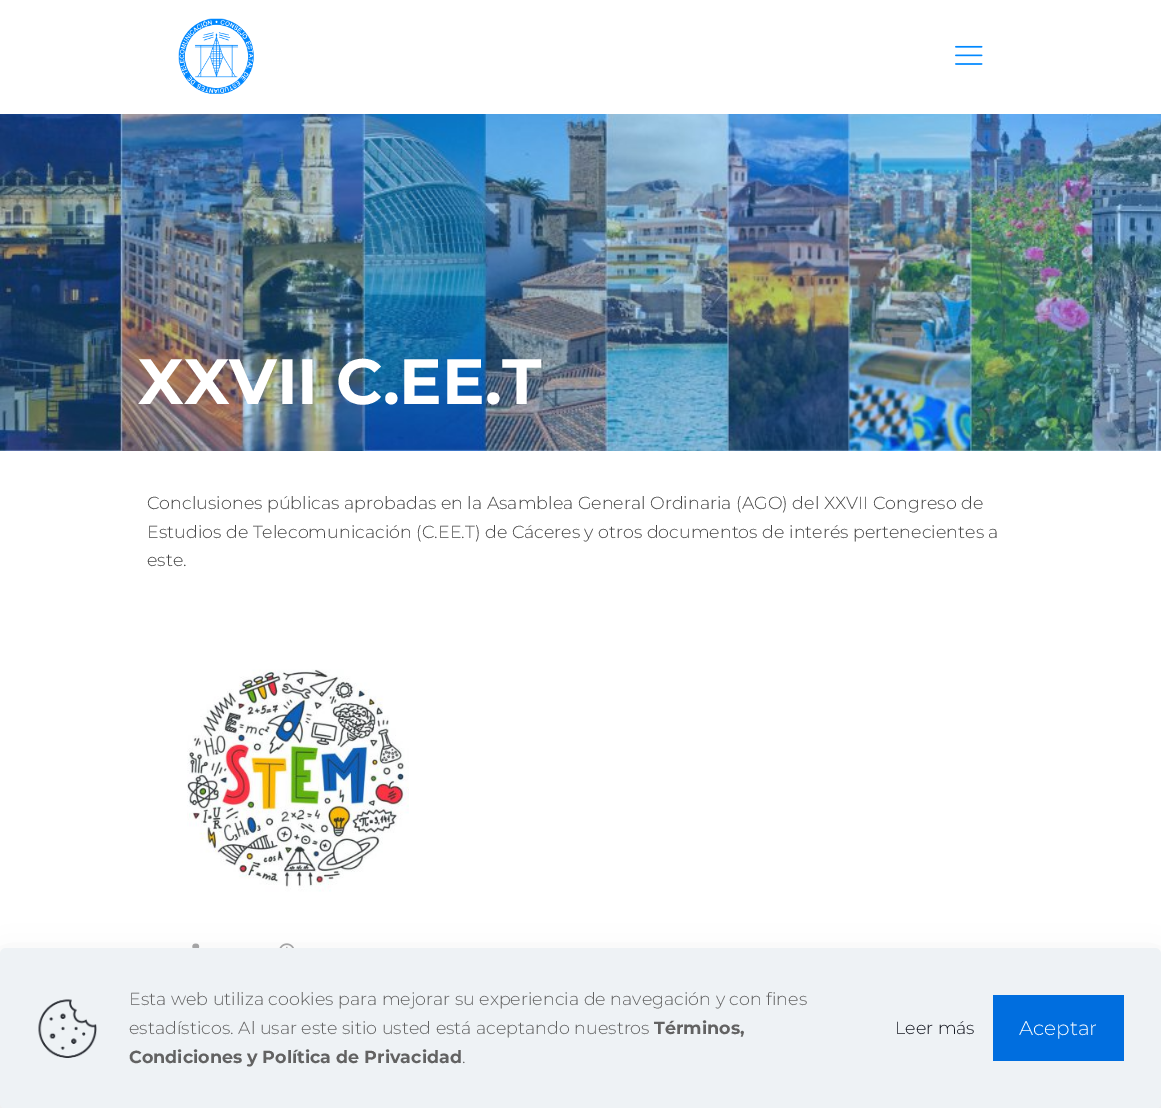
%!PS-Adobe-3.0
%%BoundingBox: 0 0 1161 1108
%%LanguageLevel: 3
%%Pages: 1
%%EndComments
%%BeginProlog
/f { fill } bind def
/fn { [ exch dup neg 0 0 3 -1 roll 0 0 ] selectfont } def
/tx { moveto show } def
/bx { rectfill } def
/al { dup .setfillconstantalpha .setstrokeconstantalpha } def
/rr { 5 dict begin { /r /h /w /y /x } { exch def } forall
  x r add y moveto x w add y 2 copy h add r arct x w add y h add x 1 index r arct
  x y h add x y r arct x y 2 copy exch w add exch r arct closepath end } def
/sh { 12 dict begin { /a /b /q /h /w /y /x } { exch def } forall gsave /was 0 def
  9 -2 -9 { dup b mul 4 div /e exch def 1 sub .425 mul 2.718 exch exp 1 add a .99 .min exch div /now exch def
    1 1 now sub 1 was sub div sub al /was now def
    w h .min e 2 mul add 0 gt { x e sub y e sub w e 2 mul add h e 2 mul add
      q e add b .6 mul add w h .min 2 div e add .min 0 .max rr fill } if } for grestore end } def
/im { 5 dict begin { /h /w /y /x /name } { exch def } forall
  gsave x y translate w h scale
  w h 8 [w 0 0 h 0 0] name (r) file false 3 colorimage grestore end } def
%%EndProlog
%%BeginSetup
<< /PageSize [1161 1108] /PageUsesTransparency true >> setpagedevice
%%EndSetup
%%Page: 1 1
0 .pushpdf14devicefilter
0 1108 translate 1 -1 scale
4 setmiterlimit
1 setgray
0 0 1161 1108 bx
(image0.raw) 0 114 1161 337 im
(image1.raw) 178 18 76 76 im
(image2.raw) 955 45 28 20 im
/Montserrat-Bold 63.75 fn
(XXVII C.EE.T) 138 404 tx
/Montserrat-Light 17.5 fn
0.275 setgray
(Conclusiones públicas aprobadas en la Asamblea General Ordinaria \(AGO\) del XXVII Congreso de) 147 509 tx
(Estudios de Telecomunicación \(C.EE.T\) de Cáceres y otros documentos de interés pertenecientes a) 147 538 tx
(este.) 147 566 tx
(image3.raw) 187 669 222 223 im
(image4.raw) 192 943 8 5 im
(image5.raw) 279 943 15 5 im
0.004 0.027 0.153 setrgbcolor
0 966 1161 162 6 19 0.13 sh
0.933 0.949 0.961 setrgbcolor
0 948 1161 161 6 rr f
(image6.raw) 38 999 59 59 im
0.384 setgray
(Esta web utiliza cookies para mejorar su experiencia de navegación y con fines) 129 1005 tx
(estadísticos. Al usar este sitio usted está aceptando nuestros) 129 1034 tx
/Montserrat-Bold 17.5 fn
(Términos,) 654 1034 tx
(Condiciones y Política de Privacidad) 129 1063 tx
/Montserrat-Light 17.5 fn
(.) 462 1063 tx
0.086 0.098 0.133 setrgbcolor
(Leer más) 895 1034 tx
0 0.431 0.875 setrgbcolor
993 995 131 66 bx
/Montserrat-Light 20 fn
1 setgray
(Aceptar) 1019 1035 tx
.poppdf14devicefilter showpage
%%EOF
